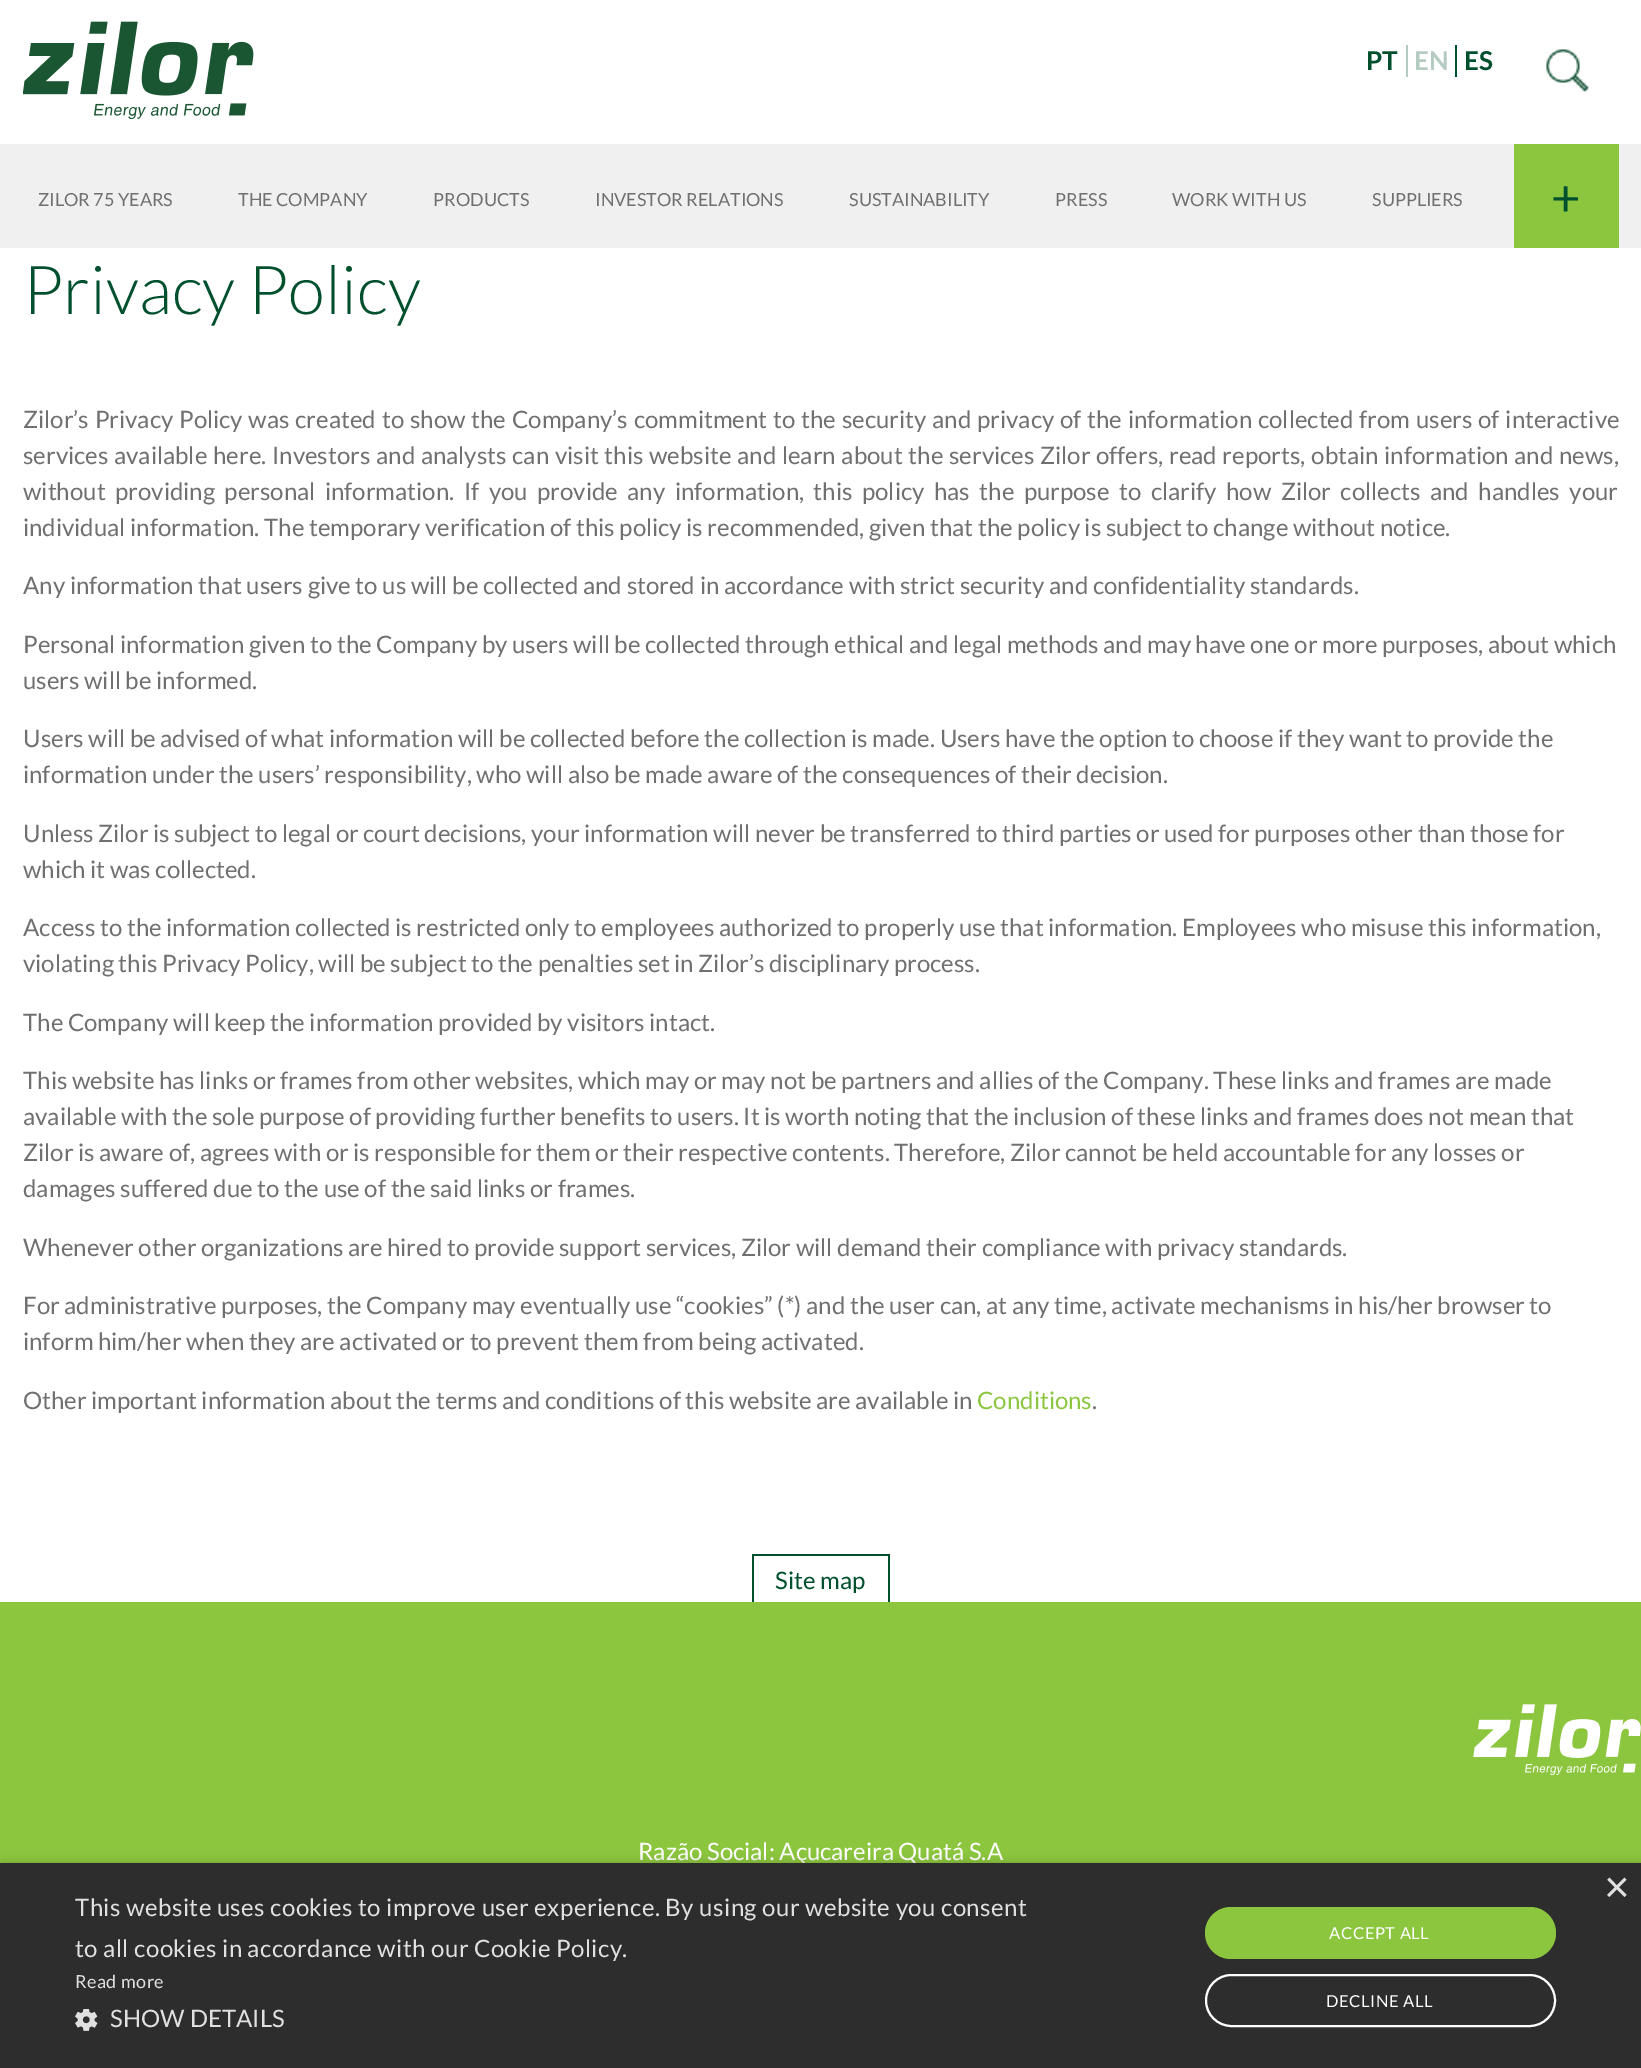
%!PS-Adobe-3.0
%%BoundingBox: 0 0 1641 2068
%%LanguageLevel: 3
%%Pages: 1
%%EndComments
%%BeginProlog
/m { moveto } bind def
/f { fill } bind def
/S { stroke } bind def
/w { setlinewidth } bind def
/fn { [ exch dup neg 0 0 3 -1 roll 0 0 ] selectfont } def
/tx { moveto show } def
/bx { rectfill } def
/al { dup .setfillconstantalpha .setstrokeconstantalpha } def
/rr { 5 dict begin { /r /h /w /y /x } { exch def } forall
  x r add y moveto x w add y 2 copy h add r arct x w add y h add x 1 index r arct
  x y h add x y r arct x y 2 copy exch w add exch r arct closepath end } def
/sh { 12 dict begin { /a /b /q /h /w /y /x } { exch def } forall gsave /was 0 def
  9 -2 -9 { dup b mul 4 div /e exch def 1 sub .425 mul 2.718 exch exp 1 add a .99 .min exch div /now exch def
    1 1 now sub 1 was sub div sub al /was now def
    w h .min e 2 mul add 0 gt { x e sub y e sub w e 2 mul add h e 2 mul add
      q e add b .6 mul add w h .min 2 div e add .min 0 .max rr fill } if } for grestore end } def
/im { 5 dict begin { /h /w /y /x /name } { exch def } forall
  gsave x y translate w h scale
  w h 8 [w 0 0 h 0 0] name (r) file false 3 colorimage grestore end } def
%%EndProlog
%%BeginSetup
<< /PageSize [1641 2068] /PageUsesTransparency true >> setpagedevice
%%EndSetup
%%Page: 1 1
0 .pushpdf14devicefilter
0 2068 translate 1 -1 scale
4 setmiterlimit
1 setgray
0 0 1641 2068 bx
(image0.raw) 23 21 231 98 im
/Lato-Bold 26 fn
0.004 0.314 0.176 setrgbcolor
(PT) 1366 70 tx
0.702 0.796 0.753 setrgbcolor
(EN) 1414 70 tx
1406 45 2 32 bx
0.004 0.314 0.176 setrgbcolor
(ES) 1464 70 tx
1455 45 2 32 bx
(image1.raw) 1546 49 43 43 im
0.941 setgray
0 144 1641 104 bx
/Lato-Regular 18 fn
0.439 setgray
(ZILOR 75 YEARS) 38 206 tx
(THE COMPANY) 238 206 tx
(PRODUCTS) 433 206 tx
(INVESTOR RELATIONS) 595 206 tx
(SUSTAINABILITY) 849 206 tx
(PRESS) 1055 206 tx
(WORK WITH US) 1172 206 tx
(SUPPLIERS) 1372 206 tx
0.549 0.776 0.243 setrgbcolor
1514 144 105 104 bx
/Lato-Regular 51 fn
0.004 0.314 0.176 setrgbcolor
(+) 1551 216 tx
/Lato-Light 67.5 fn
(Privacy Policy) 23 314 tx
/Lato-Regular 24 fn
0.439 setgray
23 428 m 1.2 0 32 (Zilor’s Privacy Policy was created to show the Company’s commitment to the security and privacy of the information collected from users of interactive) widthshow
23 464 m 1.1 0 32 (services available here. Investors and analysts can visit this website and learn about the services Zilor offers, read reports, obtain information and news,) widthshow
23 500 m 4.9 0 32 (without providing personal information. If you provide any information, this policy has the purpose to clarify how Zilor collects and handles your) widthshow
(individual information. The temporary verification of this policy is recommended, given that the policy is subject to change without notice.) 23 536 tx
(Any information that users give to us will be collected and stored in accordance with strict security and confidentiality standards.) 23 594 tx
(Personal information given to the Company by users will be collected through ethical and legal methods and may have one or more purposes, about which) 23 653 tx
(users will be informed.) 23 689 tx
(Users will be advised of what information will be collected before the collection is made. Users have the option to choose if they want to provide the) 23 747 tx
(information under the users’ responsibility, who will also be made aware of the consequences of their decision.) 23 783 tx
(Unless Zilor is subject to legal or court decisions, your information will never be transferred to third parties or used for purposes other than those for) 23 842 tx
(which it was collected.) 23 878 tx
(Access to the information collected is restricted only to employees authorized to properly use that information. Employees who misuse this information,) 23 936 tx
(violating this Privacy Policy, will be subject to the penalties set in Zilor’s disciplinary process.) 23 972 tx
(The Company will keep the information provided by visitors intact.) 23 1031 tx
(This website has links or frames from other websites, which may or may not be partners and allies of the Company. These links and frames are made) 23 1089 tx
(available with the sole purpose of providing further benefits to users. It is worth noting that the inclusion of these links and frames does not mean that) 23 1125 tx
(Zilor is aware of, agrees with or is responsible for them or their respective contents. Therefore, Zilor cannot be held accountable for any losses or) 23 1161 tx
(damages suffered due to the use of the said links or frames.) 23 1197 tx
(Whenever other organizations are hired to provide support services, Zilor will demand their compliance with privacy standards.) 23 1256 tx
(For administrative purposes, the Company may eventually use “cookies” \(*\) and the user can, at any time, activate mechanisms in his/her browser to) 23 1314 tx
(inform him/her when they are activated or to prevent them from being activated.) 23 1350 tx
(Other important information about the terms and conditions of this website are available in) 23 1409 tx
0.549 0.776 0.243 setrgbcolor
(Conditions) 977 1409 tx
0.439 setgray
(.) 1092 1409 tx
0.549 0.776 0.243 setrgbcolor
0 1602 1641 261 bx
0.004 0.314 0.176 setrgbcolor
752 1554 138 2 bx
888 1554 2 48 bx
752 1554 2 48 bx
(Site map) 775 1589 tx
(image2.raw) 1473 1704 168 71 im
1 setgray
(Razão Social: Açucareira Quatá S.A) 638 1860 tx
0 setgray
2 1866 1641 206 0 6 0.35 sh
0.176 setgray
0 1863 1641 205 bx
/LiberationSans-Regular 44 fn
0.878 setgray
(×) 1604 1902 tx
/Lato-Regular 24 fn
75 1916 m 0.45 0 (This website uses cookies to improve user experience. By using our website you consent) ashow
75 1957 m 0.45 0 (to all cookies in accordance with our Cookie Policy.) ashow
/Lato-Regular 18 fn
75 1988 m 0.45 0 (Read more) ashow
(image3.raw) 75 2009 23 22 im
/Lato-Regular 24 fn
110 2027 m 0.1 0 (SHOW DETAILS) ashow
0.549 0.776 0.243 setrgbcolor
1205 1907 351 52 26 rr f
/Lato-Regular 16.5 fn
1 setgray
1329 1939 m 0.6 0 (ACCEPT ALL) ashow
2 w
1206 1975 349 51 25.5 rr S
1326 2007 m 0.6 0 (DECLINE ALL) ashow
.poppdf14devicefilter showpage
%%EOF
